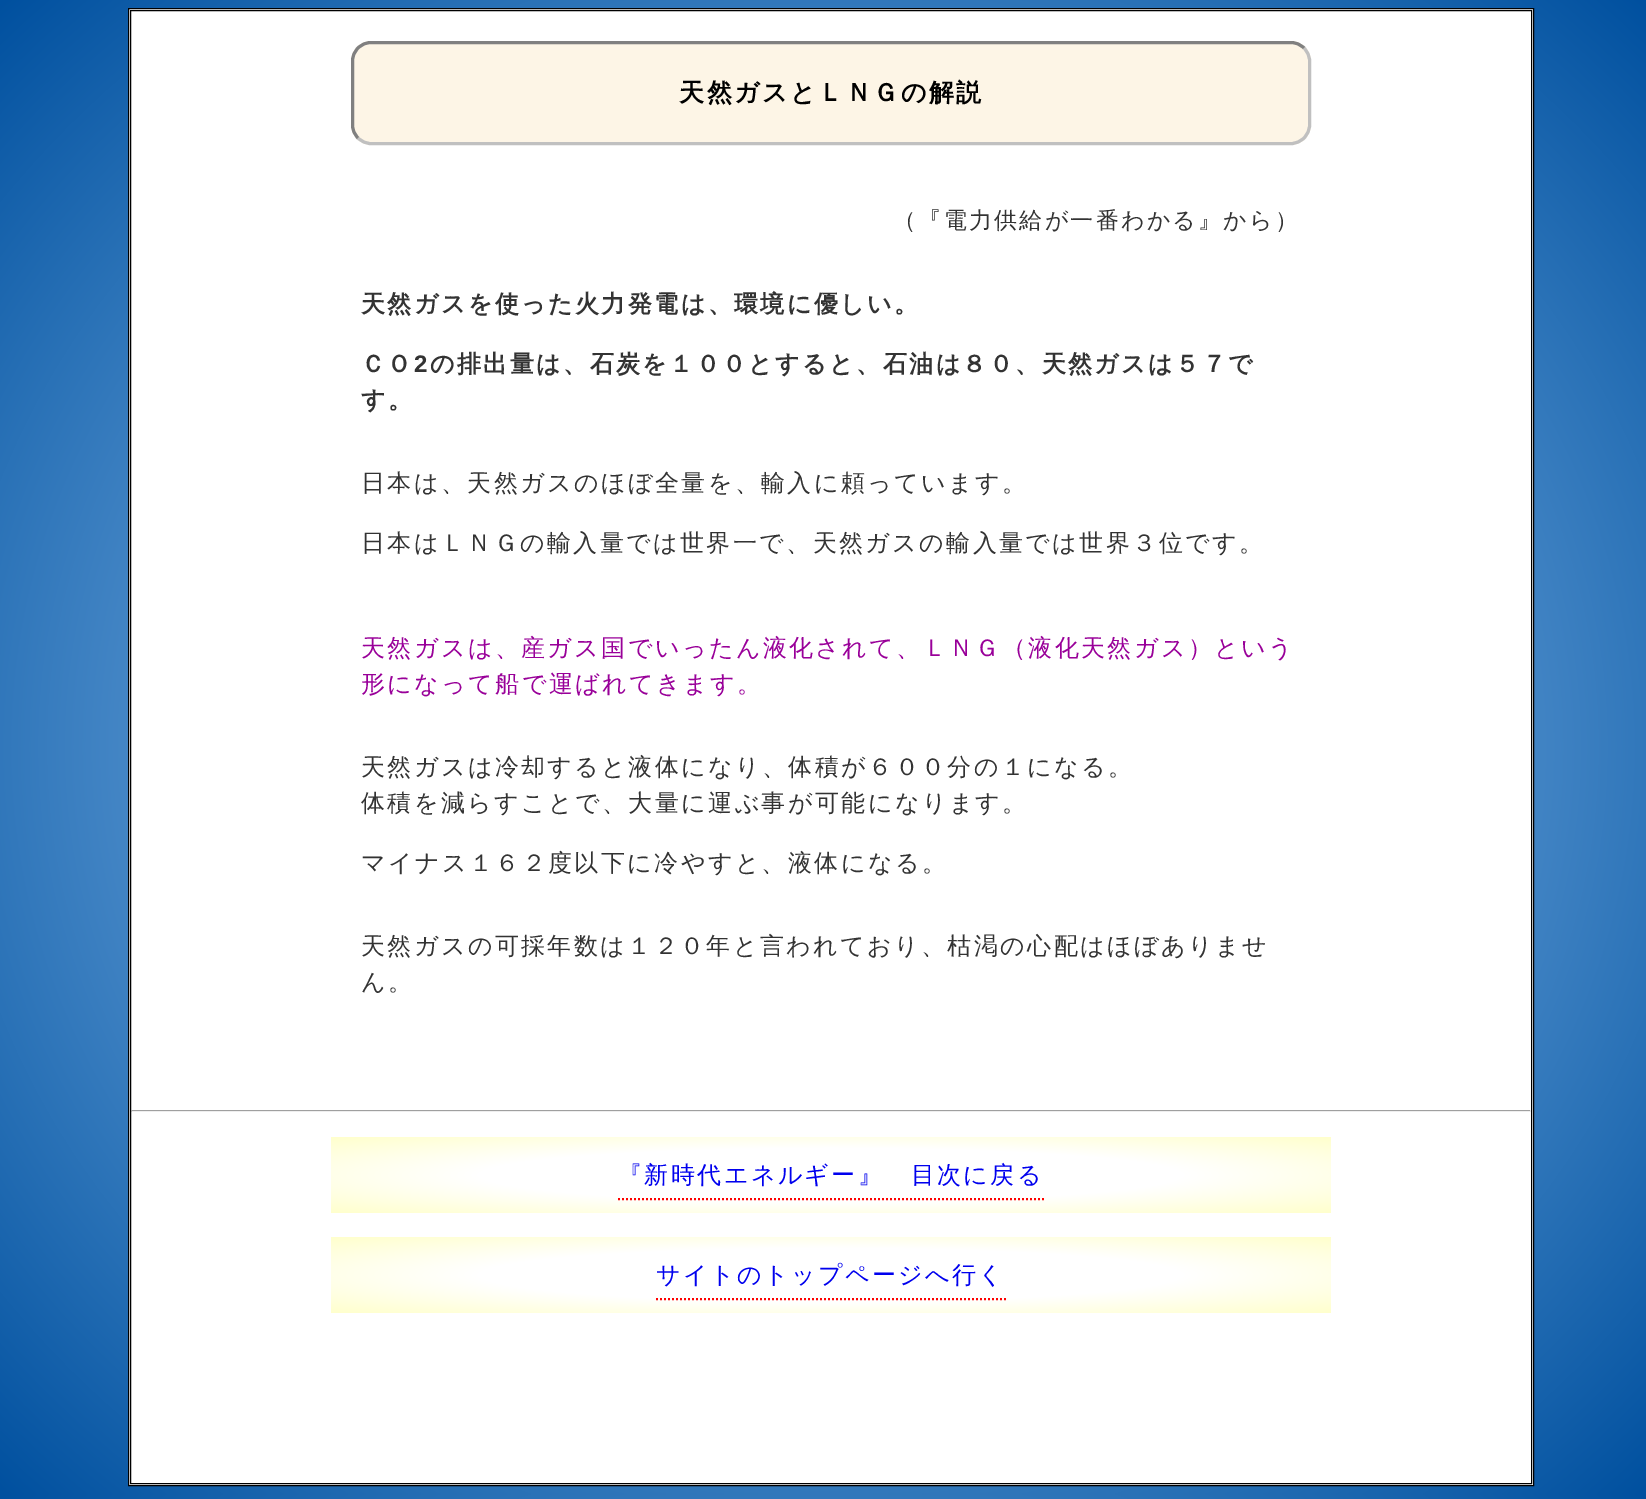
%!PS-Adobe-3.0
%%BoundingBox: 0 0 1646 1499
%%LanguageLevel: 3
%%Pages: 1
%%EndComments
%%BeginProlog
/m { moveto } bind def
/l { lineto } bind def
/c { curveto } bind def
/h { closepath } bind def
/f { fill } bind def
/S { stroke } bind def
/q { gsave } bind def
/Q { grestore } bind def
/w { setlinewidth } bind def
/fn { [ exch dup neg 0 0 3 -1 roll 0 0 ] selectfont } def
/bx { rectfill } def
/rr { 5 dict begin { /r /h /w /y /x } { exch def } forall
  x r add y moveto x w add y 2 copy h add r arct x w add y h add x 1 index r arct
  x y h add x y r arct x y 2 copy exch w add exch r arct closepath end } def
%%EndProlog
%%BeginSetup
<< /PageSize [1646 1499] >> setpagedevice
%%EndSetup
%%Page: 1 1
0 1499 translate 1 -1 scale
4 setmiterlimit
1 setgray
0 0 1646 1499 bx
q 0 0 m 1646 0 l 1646 1494 l 0 1494 l h clip newpath 823 747 translate 1164 1056 scale
<< /ShadingType 3 /ColorSpace /DeviceRGB /Coords [0 0 0 0 0 1] /Extend [true true] /Function << /FunctionType 2 /Domain [0 1] /C0 [0.663 0.839 1] /C1 [0 0.314 0.624] /N 1 >> >> shfill Q
q 0 1494 m 1646 1494 l 1646 1499 l 0 1499 l h clip newpath 823 2241 translate 1164 1056 scale
<< /ShadingType 3 /ColorSpace /DeviceRGB /Coords [0 0 0 0 0 1] /Extend [true true] /Function << /FunctionType 2 /Domain [0 1] /C0 [0.663 0.839 1] /C1 [0 0.314 0.624] /N 1 >> >> shfill Q
128.5 8.5 m 1533.5 8.5 l 1533.5 1485.5 l 128.5 1485.5 l h q f Q
0 setgray
S
130.5 10.5 1401 1473 rectstroke
0.992 0.961 0.902 setrgbcolor
351 41 960 104 20 rr f
0.753 setgray
3 w
1304 48 m 1307.5 51.5 1309.5 56 1309.5 61 c 1309.5 125 l 1309.5 130 1307.5 134.5 1304 138 c 1300.5 141.5 1296 143.5 1291 143.5 c 371 143.5 l 366 143.5 361.5 141.5 358 138 c S
0.502 setgray
358 138 m 354.5 134.5 352.5 130 352.5 125 c 352.5 61 l 352.5 56 354.5 51.5 358 48 c 361.5 44.5 366 42.5 371 42.5 c 1291 42.5 l 1296 42.5 1300.5 44.5 1304 48 c S
/WenQuanYiZenHei-Bold 25 fn
0 setgray
679 101 m 2.5 0 (天然ガスとＬＮＧの解説) ashow
/WenQuanYiZenHei-Medium 23 fn
0.2 setgray
893 228 m 2.25 0 (（『電力供給が一番わかる』から）) ashow
/WenQuanYiZenHei-Bold 24 fn
361 312 m 2.4 0 (天然ガスを使った火力発電は、環境に優しい。) ashow
361 372 m 2.4 0 (ＣＯ) ashow
/LiberationSans-Bold 24 fn
414 372 m 2.4 0 (2) ashow
/WenQuanYiZenHei-Bold 24 fn
430 372 m 2.4 0 (の排出量は、石炭を１００とすると、石油は８０、天然ガスは５７で) ashow
361 408 m 2.4 0 (す。) ashow
/WenQuanYiZenHei-Medium 24 fn
361 491 m 2.4 0 (日本は、天然ガスのほぼ全量を、輸入に頼っています。) ashow
361 551 m 2.4 0 (日本はＬＮＧの輸入量では世界一で、天然ガスの輸入量では世界３位です。) ashow
0.6 0 0.6 setrgbcolor
361 656 m 2.4 0 (天然ガスは、産ガス国でいったん液化されて、ＬＮＧ（液化天然ガス）という) ashow
361 692 m 2.4 0 (形になって船で運ばれてきます。) ashow
0.2 setgray
361 775 m 2.4 0 (天然ガスは冷却すると液体になり、体積が６００分の１になる。) ashow
361 811 m 2.4 0 (体積を減らすことで、大量に運ぶ事が可能になります。) ashow
361 871 m 2.4 0 (マイナス１６２度以下に冷やすと、液体になる。) ashow
361 954 m 2.4 0 (天然ガスの可採年数は１２０年と言われており、枯渇の心配はほぼありませ) ashow
361 990 m 2.4 0 (ん。) ashow
0.624 setgray
131 1110 1400 1 bx
0.933 setgray
1530 1110 1 2 bx
131 1111 1400 1 bx
0.624 setgray
131 1110 1 2 bx
q 331 1137 m 1331 1137 l 1331 1213 l 331 1213 l h clip newpath 831 1175 translate 707 54 scale
<< /ShadingType 3 /ColorSpace /DeviceRGB /Coords [0 0 0 0 0 1] /Extend [true true] /Function << /FunctionType 3 /Domain [0 1] /Functions [<< /FunctionType 2 /Domain [0 1] /C0 [1 1 1] /C1 [1 1 1] /N 1 >> << /FunctionType 2 /Domain [0 1] /C0 [1 1 1] /C1 [1 1 0.8] /N 1 >>] /Bounds [0.5] /Encode [0 1 0 1] >> >> shfill Q
0 0 0.933 setrgbcolor
618 1183 m 2.4 0 (『新時代エネルギー』　目次に戻る) ashow
1 0 0 setrgbcolor
2 w
[2 2] 0 setdash
618 1199 m 1044 1199 l S
q 331 1237 m 1331 1237 l 1331 1313 l 331 1313 l h clip newpath 831 1275 translate 707 54 scale
<< /ShadingType 3 /ColorSpace /DeviceRGB /Coords [0 0 0 0 0 1] /Extend [true true] /Function << /FunctionType 3 /Domain [0 1] /Functions [<< /FunctionType 2 /Domain [0 1] /C0 [1 1 1] /C1 [1 1 1] /N 1 >> << /FunctionType 2 /Domain [0 1] /C0 [1 1 1] /C1 [1 1 0.8] /N 1 >>] /Bounds [0.5] /Encode [0 1 0 1] >> >> shfill Q
0 0 0.933 setrgbcolor
656 1283 m 2.4 0 (サイトのトップページへ行く) ashow
1 0 0 setrgbcolor
656 1299 m 1006 1299 l S
showpage
%%EOF
